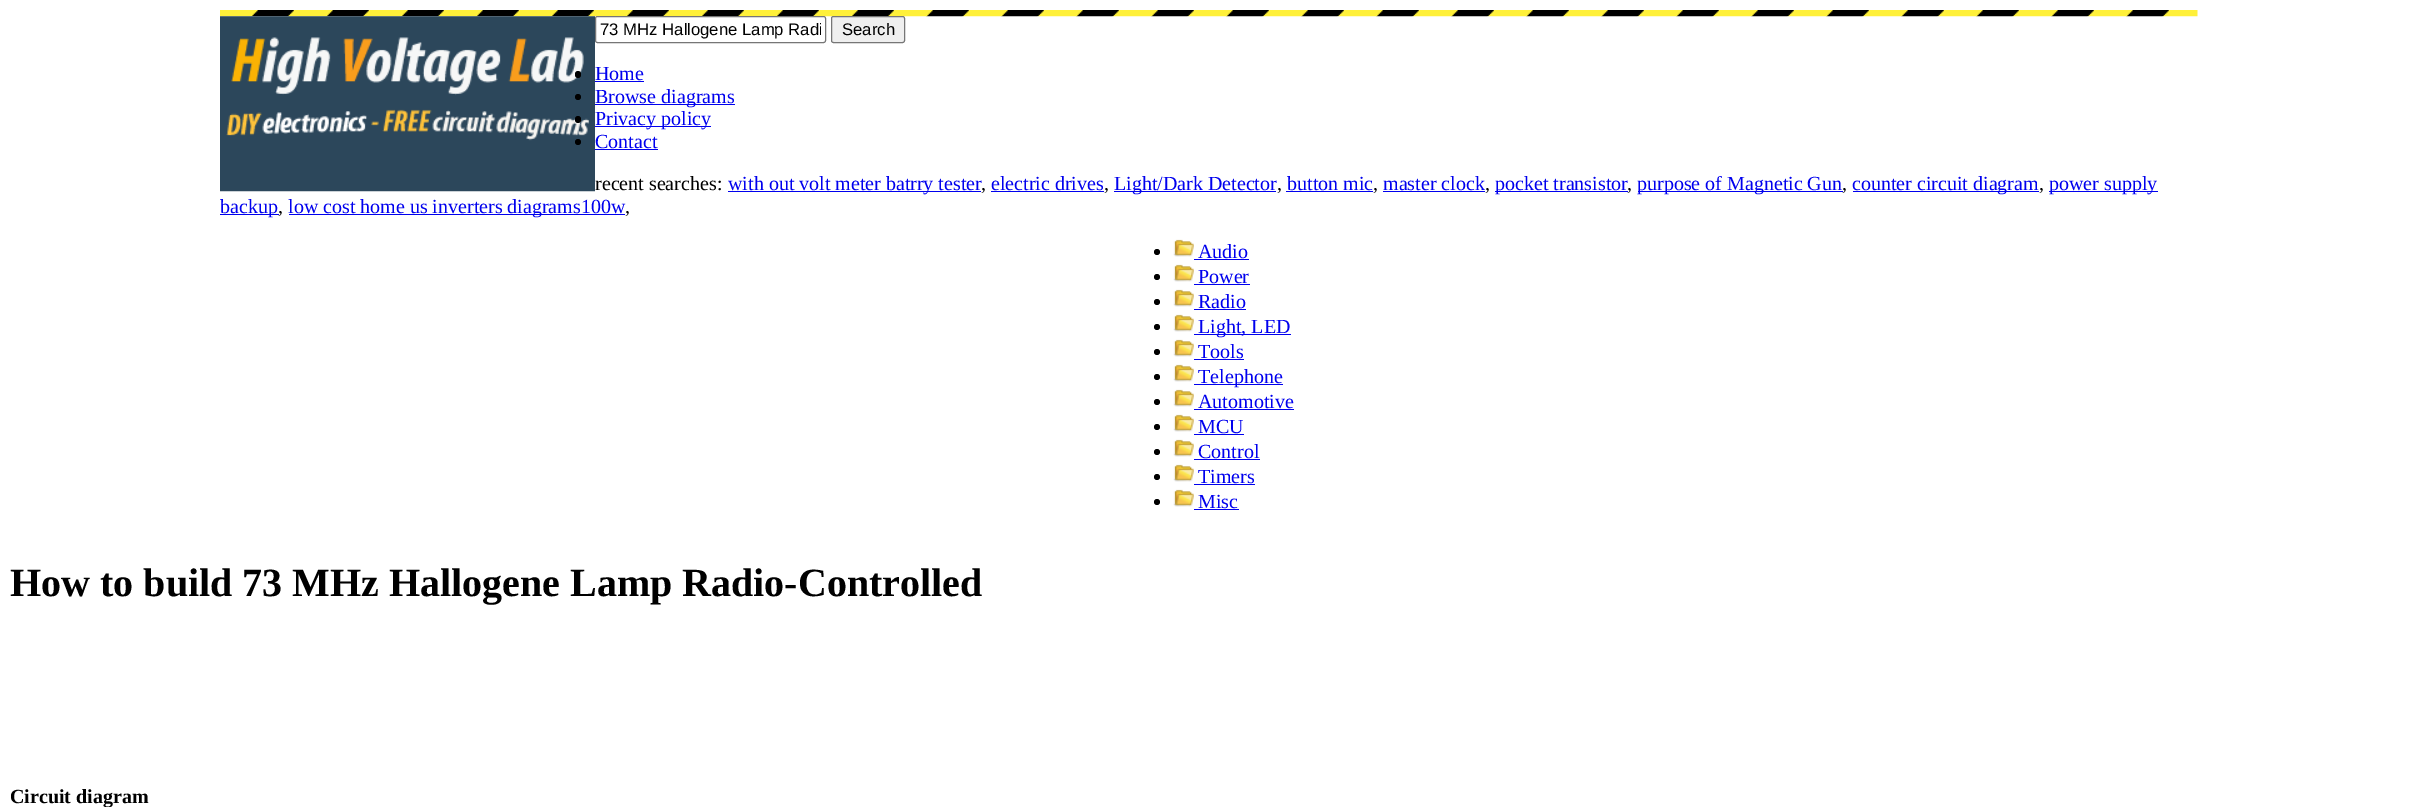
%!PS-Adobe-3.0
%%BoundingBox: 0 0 2417 807
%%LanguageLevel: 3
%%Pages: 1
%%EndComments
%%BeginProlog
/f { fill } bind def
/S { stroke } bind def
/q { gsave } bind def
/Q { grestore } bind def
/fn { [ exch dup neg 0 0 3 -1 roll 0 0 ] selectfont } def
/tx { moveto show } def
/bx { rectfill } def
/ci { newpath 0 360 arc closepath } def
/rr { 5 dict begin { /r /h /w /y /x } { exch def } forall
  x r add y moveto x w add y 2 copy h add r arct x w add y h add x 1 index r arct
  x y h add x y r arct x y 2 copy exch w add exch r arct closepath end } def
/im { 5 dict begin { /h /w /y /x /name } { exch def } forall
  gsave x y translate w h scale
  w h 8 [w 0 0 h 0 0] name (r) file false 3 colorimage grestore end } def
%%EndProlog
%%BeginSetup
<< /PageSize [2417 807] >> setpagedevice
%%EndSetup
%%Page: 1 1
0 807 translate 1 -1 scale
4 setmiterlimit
1 setgray
0 0 2417 807 bx
(image0.raw) 220 10 1978 7 im
(image1.raw) 220 16 375 176 im
595.5 16.5 230 26 2 rr q f Q
0.463 setgray
S
q
600 20 221 19 rectclip
/LiberationSans-Regular 16.7 fn
0 setgray
(73 MHz Hallogene Lamp Radi) 600 35 tx
Q
0.937 setgray
831.5 16.5 73 26 2 rr q f Q
0.463 setgray
S
/LiberationSans-Regular 16.7 fn
0 setgray
(Search) 842 35 tx
575 71 6 7 3 rr f
/LiberationSerif-Regular 20 fn
0 0 0.933 setrgbcolor
(Home) 595 80 tx
595 81 49 1 bx
0 setgray
578 97 3 ci f
0 0 0.933 setrgbcolor
595 104 140 1 bx
(Browse diagrams) 595 103 tx
0 setgray
575 116 6 7 3 rr f
0 0 0.933 setrgbcolor
595 126 116 1 bx
(Privacy policy) 595 125 tx
0 setgray
578 142 3 ci f
0 0 0.933 setrgbcolor
(Contact) 595 148 tx
595 149 63 1 bx
0 setgray
(recent searches:) 595 190 tx
0 0 0.933 setrgbcolor
728 191 253 1 bx
(with out volt meter batrry tester) 728 190 tx
0 setgray
(,) 981 190 tx
0 0 0.933 setrgbcolor
(electric drives) 991 190 tx
991 191 113 1 bx
0 setgray
(,) 1104 190 tx
0 0 0.933 setrgbcolor
1114 191 162 1 bx
(Light/Dark Detector) 1114 190 tx
0 setgray
(,) 1277 190 tx
0 0 0.933 setrgbcolor
(button mic) 1287 190 tx
1286 191 87 1 bx
0 setgray
(,) 1373 190 tx
0 0 0.933 setrgbcolor
(master clock) 1383 190 tx
1383 191 102 1 bx
0 setgray
(,) 1485 190 tx
0 0 0.933 setrgbcolor
1495 191 133 1 bx
(pocket transistor) 1495 190 tx
0 setgray
(,) 1627 190 tx
0 0 0.933 setrgbcolor
1638 191 205 1 bx
(purpose of Magnetic Gun) 1637 190 tx
0 setgray
(,) 1842 190 tx
0 0 0.933 setrgbcolor
1853 191 186 1 bx
(counter circuit diagram) 1852 190 tx
0 setgray
(,) 2039 190 tx
0 0 0.933 setrgbcolor
2049 191 109 1 bx
(power supply) 2049 190 tx
220 214 59 1 bx
(backup) 220 213 tx
0 setgray
(,) 278 213 tx
0 0 0.933 setrgbcolor
289 214 336 1 bx
(low cost home us inverters diagrams100w) 288 213 tx
0 setgray
(,) 625 213 tx
1157 252 3 ci f
(image2.raw) 1173 239 21 18 im
0 0 0.933 setrgbcolor
(Audio) 1198 258 tx
1194 259 55 1 bx
0 setgray
1157 277 3 ci f
(image2.raw) 1173 264 21 18 im
0 0 0.933 setrgbcolor
(Power) 1198 283 tx
1194 284 56 1 bx
0 setgray
1157 302 3 ci f
(image3.raw) 1173 289 21 18 im
0 0 0.933 setrgbcolor
(Radio) 1198 308 tx
1194 309 52 1 bx
0 setgray
1157 327 3 ci f
(image2.raw) 1173 314 21 18 im
0 0 0.933 setrgbcolor
1194 334 97 1 bx
(Light, LED) 1198 333 tx
0 setgray
1157 352 3 ci f
(image2.raw) 1173 339 21 18 im
0 0 0.933 setrgbcolor
(Tools) 1198 358 tx
1194 359 50 1 bx
0 setgray
1157 377 3 ci f
(image2.raw) 1173 364 21 18 im
0 0 0.933 setrgbcolor
1194 384 89 1 bx
(Telephone) 1198 383 tx
0 setgray
1157 402 3 ci f
(image2.raw) 1173 389 21 18 im
0 0 0.933 setrgbcolor
(Automotive) 1198 408 tx
1194 409 100 1 bx
0 setgray
1157 427 3 ci f
(image2.raw) 1173 414 21 18 im
0 0 0.933 setrgbcolor
(MCU) 1198 433 tx
1194 434 50 1 bx
0 setgray
1157 452 3 ci f
(image2.raw) 1173 439 21 18 im
0 0 0.933 setrgbcolor
(Control) 1198 458 tx
1194 459 66 1 bx
0 setgray
1157 477 3 ci f
(image2.raw) 1173 464 21 18 im
0 0 0.933 setrgbcolor
(Timers) 1198 483 tx
1194 484 61 1 bx
0 setgray
1157 502 3 ci f
(image2.raw) 1173 489 21 18 im
0 0 0.933 setrgbcolor
(Misc) 1198 508 tx
1194 509 45 1 bx
/LiberationSerif-Bold 40 fn
0 setgray
(How to build 73 MHz Hallogene Lamp Radio-Controlled) 10 596 tx
/LiberationSerif-Bold 20 fn
(Circuit diagram) 10 803 tx
showpage
%%EOF
